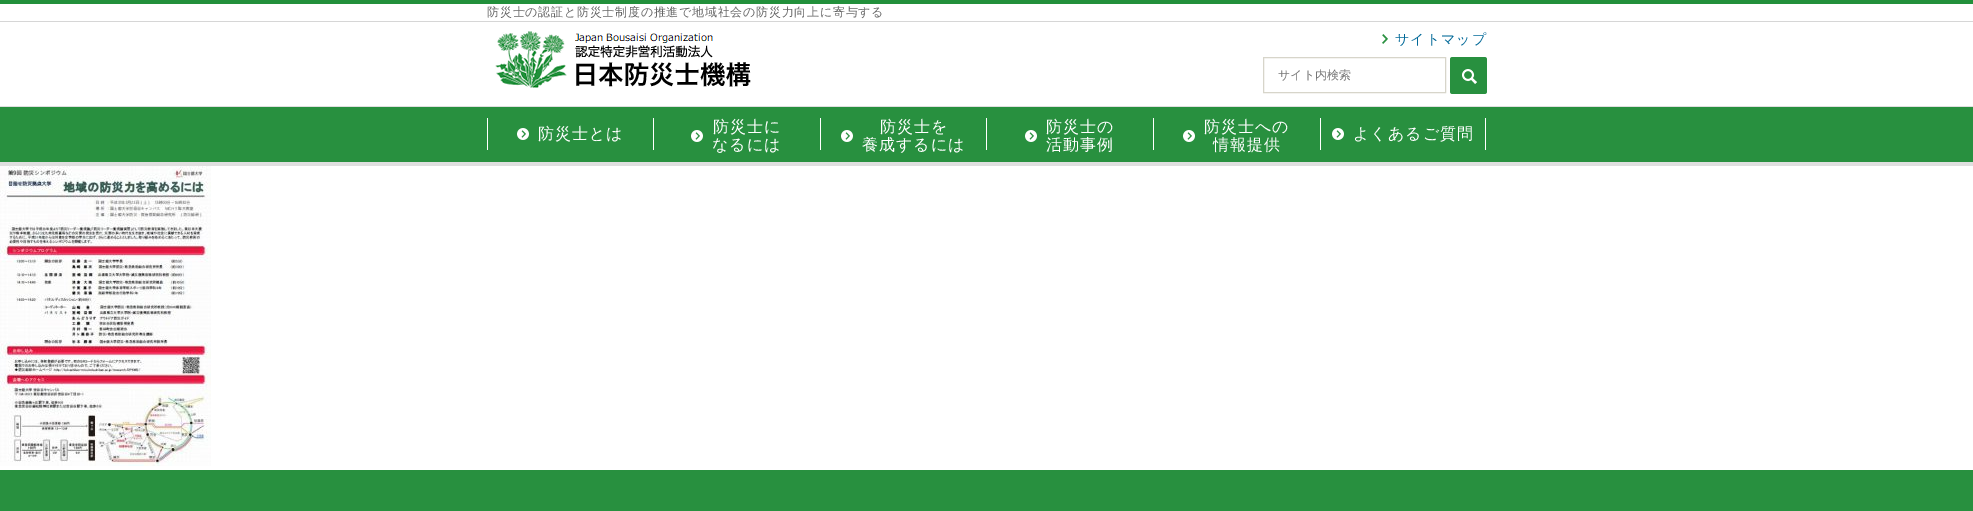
%!PS-Adobe-3.0
%%BoundingBox: 0 0 1973 511
%%LanguageLevel: 3
%%Pages: 1
%%EndComments
%%BeginProlog
/m { moveto } bind def
/fn { [ exch dup neg 0 0 3 -1 roll 0 0 ] selectfont } def
/tx { moveto show } def
/bx { rectfill } def
/im { 5 dict begin { /h /w /y /x /name } { exch def } forall
  gsave x y translate w h scale
  w h 8 [w 0 0 h 0 0] name (r) file false 3 colorimage grestore end } def
%%EndProlog
%%BeginSetup
<< /PageSize [1973 511] >> setpagedevice
%%EndSetup
%%Page: 1 1
0 511 translate 1 -1 scale
4 setmiterlimit
1 setgray
0 0 1973 511 bx
0.133 0.565 0.231 setrgbcolor
0 0 1973 4 bx
0.839 setgray
0 21 1973 1 bx
/WenQuanYiZenHei-Medium 12 fn
0.4 setgray
487 16 m 0.75 0 (防災士の認証と防災士制度の推進で地域社会の防災力向上に寄与する) ashow
(image0.raw) 495 31 256 57 im
(image1.raw) 1382 34 6 10 im
/WenQuanYiZenHei-Medium 14 fn
0 0.408 0.596 setrgbcolor
1395 44 m 1 0 (サイトマップ) ashow
0.843 0.835 0.792 setrgbcolor
1263.5 57.5 182 35 rectstroke
/WenQuanYiZenHei-Medium 12 fn
0.459 setgray
(サイト内検索) 1278 79 tx
(image2.raw) 1450 57 37 37 im
0.157 0.565 0.247 setrgbcolor
0 107 1973 55 bx
0.875 setgray
0 106 1973 1 bx
0 162 1973 4 bx
1 setgray
487 118 1 32 bx
(image3.raw) 517 128 12 12 im
/WenQuanYiZenHei-Medium 16 fn
538 139 m 1 0 (防災士とは) ashow
653 118 1 32 bx
(image3.raw) 691 130 12 12 im
713 132 m 1 0 (防災士に) ashow
712 150 m 1 0 (なるには) ashow
820 118 1 32 bx
(image3.raw) 841 130 12 12 im
880 132 m 1 0 (防災士を) ashow
862 150 m 1 0 (養成するには) ashow
986 118 1 32 bx
(image3.raw) 1025 130 12 12 im
1046 132 m 1 0 (防災士の) ashow
1046 150 m 1 0 (活動事例) ashow
1153 118 1 32 bx
(image3.raw) 1183 130 12 12 im
1204 132 m 1 0 (防災士への) ashow
1213 150 m 1 0 (情報提供) ashow
1320 118 1 32 bx
(image3.raw) 1332 128 12 12 im
1353 139 m 1 0 (よくあるご質問) ashow
1485 118 1 32 bx
(image4.raw) 0 166 211 300 im
0.157 0.565 0.247 setrgbcolor
0 470 1973 41 bx
showpage
%%EOF
